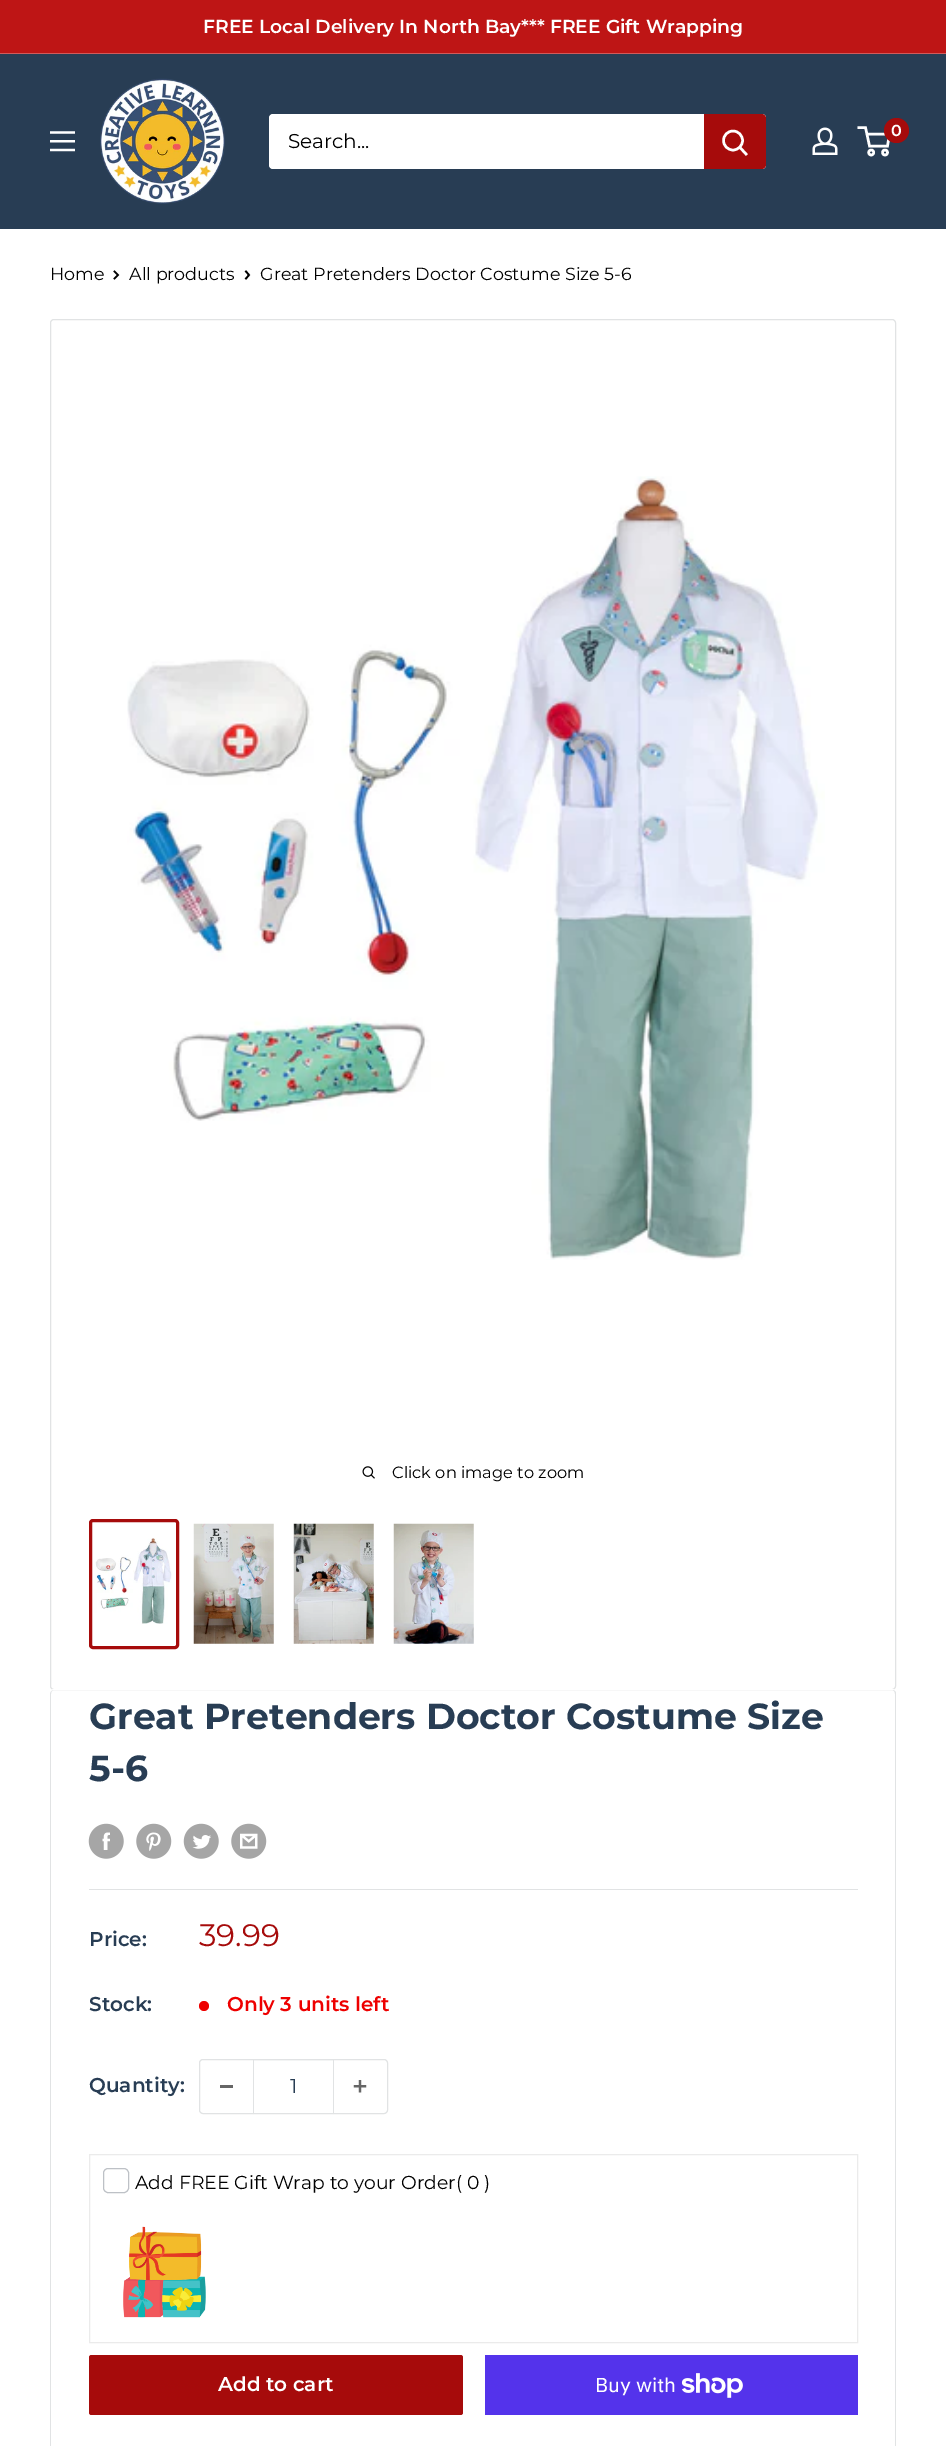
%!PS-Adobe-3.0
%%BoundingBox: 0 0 946 2446
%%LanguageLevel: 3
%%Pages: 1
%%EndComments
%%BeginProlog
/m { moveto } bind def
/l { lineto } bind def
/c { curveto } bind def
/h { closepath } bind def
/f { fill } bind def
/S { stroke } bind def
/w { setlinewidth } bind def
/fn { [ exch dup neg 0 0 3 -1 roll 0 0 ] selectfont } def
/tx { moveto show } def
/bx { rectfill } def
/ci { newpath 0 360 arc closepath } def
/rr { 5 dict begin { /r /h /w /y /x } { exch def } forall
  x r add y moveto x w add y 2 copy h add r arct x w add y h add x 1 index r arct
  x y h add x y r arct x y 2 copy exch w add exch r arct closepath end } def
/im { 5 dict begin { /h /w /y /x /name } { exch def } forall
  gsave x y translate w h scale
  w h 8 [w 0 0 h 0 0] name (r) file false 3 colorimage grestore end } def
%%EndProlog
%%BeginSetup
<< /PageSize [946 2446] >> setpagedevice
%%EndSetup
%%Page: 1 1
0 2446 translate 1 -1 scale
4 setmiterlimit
1 setgray
0 0 946 2446 bx
0.745 0.082 0.082 setrgbcolor
0 0 946 53 bx
0.824 0.357 0.357 setrgbcolor
0 53 946 1 bx
/Montserrat-SemiBold 18.75 fn
1 setgray
(FREE Local Delivery In North Bay*** FREE Gift Wrapping) 203 33 tx
0.157 0.239 0.329 setrgbcolor
0 54 946 175 bx
(image0.raw) 50 131 25 21 im
(image1.raw) 100 78 125 126 im
1 setgray
269 114 497 55 4 rr f
/Montserrat-Regular 20 fn
0 setgray
(Search...) 288 148 tx
0.651 0.043 0.043 setrgbcolor
704 114 m 762 114 l 764 114 766 116 766 118 c 766 165 l 766 167 764 169 762 169 c 704 169 l h f
1 setgray
2.5 w
2 setlinecap
746 154 m 740 147.5 l S
0 setlinecap
733 140.5 9.5 ci S
(image2.raw) 812 127 26 28 im
871.2 152.5 2.5 ci S
885 152.5 2.5 ci S
866.5 134 m 889.5 134 l 887.5 146 l 869.5 146 l 865.5 127.5 l 857.5 127.5 l S
0.651 0.043 0.043 setrgbcolor
896.5 130.5 12.5 ci f
/Montserrat-SemiBold 16 fn
1 setgray
(0) 891 136 tx
/Montserrat-Regular 17.5 fn
0 setgray
(Home) 50 280 tx
1.7 w
2 setlinecap
114.5 271.5 m 118 275 l 114.5 278.5 l S
(All products) 129 280 tx
246 271.5 m 249 275 l 246 278.5 l S
(Great Pretenders Doctor Costume Size 5-6) 260 280 tx
0.882 0.89 0.894 setrgbcolor
1 w
0 setlinecap
50.5 319.5 845 1370 3.5 rr S
(image3.raw) 127 476 698 784 im
(image4.raw) 362 1466 13 13 im
/Montserrat-Regular 16.25 fn
0 setgray
(Click on image to zoom) 392 1478 tx
0.651 0.043 0.043 setrgbcolor
3 w
90.5 1520.5 87 127 2.5 rr S
(image5.raw) 94 1538 78 86 im
(image6.raw) 193 1523 81 121 im
(image7.raw) 293 1523 81 121 im
(image8.raw) 393 1523 81 121 im
1 setgray
54 1689 m 51 1689 50 1691 50 1694 c 50 1692 52 1690 54 1690 c 892 1690 l 894 1690 895 1691 896 1692 c 896 1690 894 1689 892 1689 c h f
0.882 0.89 0.894 setrgbcolor
54 1690 m 892 1690 l 895 1690 896 1692 896 1694 c 896 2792 l 896 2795 895 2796 892 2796 c 54 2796 l 52 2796 50 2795 50 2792 c 50 1694 l 50 1692 52 1690 54 1690 c h 54 1690 m 892 1690 l 894 1690 895 1692 895 1694 c 895 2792 l 895 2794 894 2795 892 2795 c 54 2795 l 52 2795 51 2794 51 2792 c 51 1694 l 51 1692 52 1690 54 1690 c h eofill
/Montserrat-Bold 36.25 fn
0.157 0.239 0.329 setrgbcolor
(Great Pretenders Doctor Costume Size) 89 1729 tx
(5-6) 89 1781 tx
(image9.raw) 88 1823 36 36 im
(image10.raw) 136 1823 36 36 im
(image11.raw) 183 1823 36 36 im
(image12.raw) 231 1823 36 36 im
0.882 0.89 0.894 setrgbcolor
89 1889 769 1 bx
/Montserrat-SemiBold 20 fn
0.157 0.239 0.329 setrgbcolor
(Price:) 89 1946 tx
/Montserrat-Regular 31 fn
0.651 0.043 0.043 setrgbcolor
(39.99) 199 1946 tx
/Montserrat-SemiBold 20 fn
0.157 0.239 0.329 setrgbcolor
(Stock:) 89 2011 tx
0.933 0 0 setrgbcolor
204 2006 5 ci f
(Only 3 units left) 227 2011 tx
0.157 0.239 0.329 setrgbcolor
(Quantity:) 89 2092 tx
0.882 0.89 0.894 setrgbcolor
1 w
199.5 2059.5 188 54 3.5 rr S
0.4 setgray
220 2085 13 3 bx
0.953 0.957 0.957 setrgbcolor
254 2060 79 1 bx
0.882 0.89 0.894 setrgbcolor
333 2060 1 53 bx
253 2060 1 53 bx
/Montserrat-Regular 20 fn
0.157 0.239 0.329 setrgbcolor
(1) 290 2093 tx
(image13.raw) 353 2080 14 13 im
0.922 setgray
89.5 2154.5 768 188 rectstroke
0.741 0.757 0.776 setrgbcolor
103.5 2168.5 25 24 4.5 rr S
/Montserrat-Regular 18.75 fn
0 setgray
(Add FREE Gift Wrap to your Order\( 0 \)) 135 2189 tx
(image14.raw) 123 2226 83 92 im
0.651 0.043 0.043 setrgbcolor
89 2355 374 60 2.5 rr f
/Montserrat-SemiBold 20 fn
1 setgray
(Add to cart) 218 2391 tx
0.329 0.2 0.922 setrgbcolor
485 2355 373 60 bx
/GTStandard-Regular 20 fn
1 setgray
(Buy with) 595 2392 tx
(image15.raw) 681 2373 62 25 im
showpage
%%EOF
